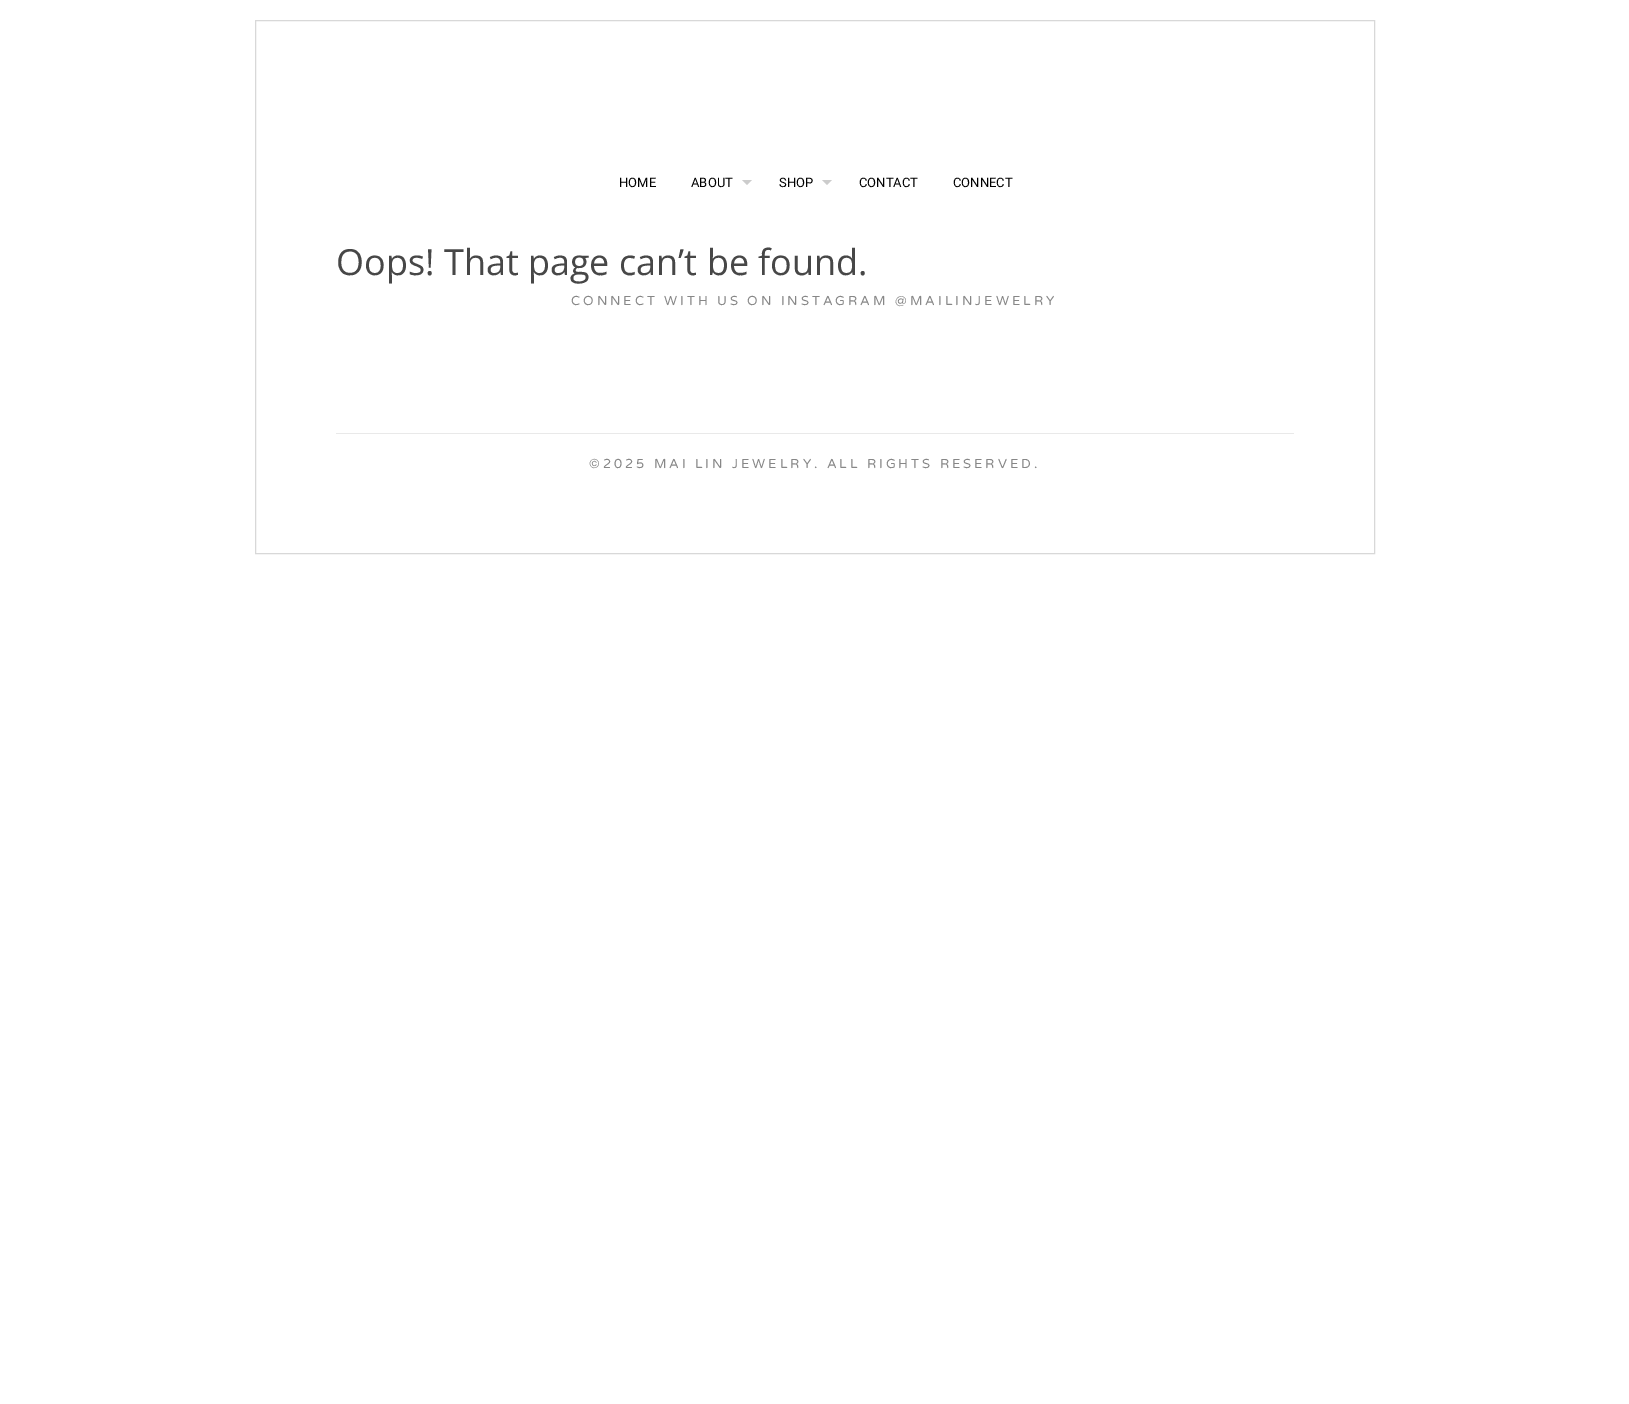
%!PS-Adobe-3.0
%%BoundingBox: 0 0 1629 1404
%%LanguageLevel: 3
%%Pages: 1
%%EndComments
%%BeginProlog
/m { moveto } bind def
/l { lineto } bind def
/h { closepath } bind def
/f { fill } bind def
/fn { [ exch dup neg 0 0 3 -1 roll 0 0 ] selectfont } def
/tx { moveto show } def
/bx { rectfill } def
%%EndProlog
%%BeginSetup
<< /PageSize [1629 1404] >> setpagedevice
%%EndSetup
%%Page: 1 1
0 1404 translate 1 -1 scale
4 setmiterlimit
1 setgray
0 0 1629 1404 bx
0.847 setgray
255.5 20.5 1119 533 rectstroke
/Roboto-Regular 13 fn
0 setgray
(HOME) 619 187 tx
(ABOUT) 691 187 tx
0.8 setgray
742 180 m 752 180 l 747 185 l h f
0 setgray
(SHOP) 779 187 tx
0.8 setgray
822 180 m 832 180 l 827 185 l h f
0 setgray
(CONTACT) 859 187 tx
(CONNECT) 953 187 tx
/OpenSans-Regular 36 fn
0.278 setgray
(Oops! That page can’t be found.) 336 275 tx
/VarelaRound-Regular 13 fn
0.529 setgray
571 305 m 3 0 (CONNECT WITH US ON INSTAGRAM @MAILINJEWELRY) ashow
0.914 setgray
336 433 958 1 bx
0.529 setgray
589 468 m 3 0 (©2025 MAI LIN JEWELRY. ALL RIGHTS RESERVED.) ashow
showpage
%%EOF
